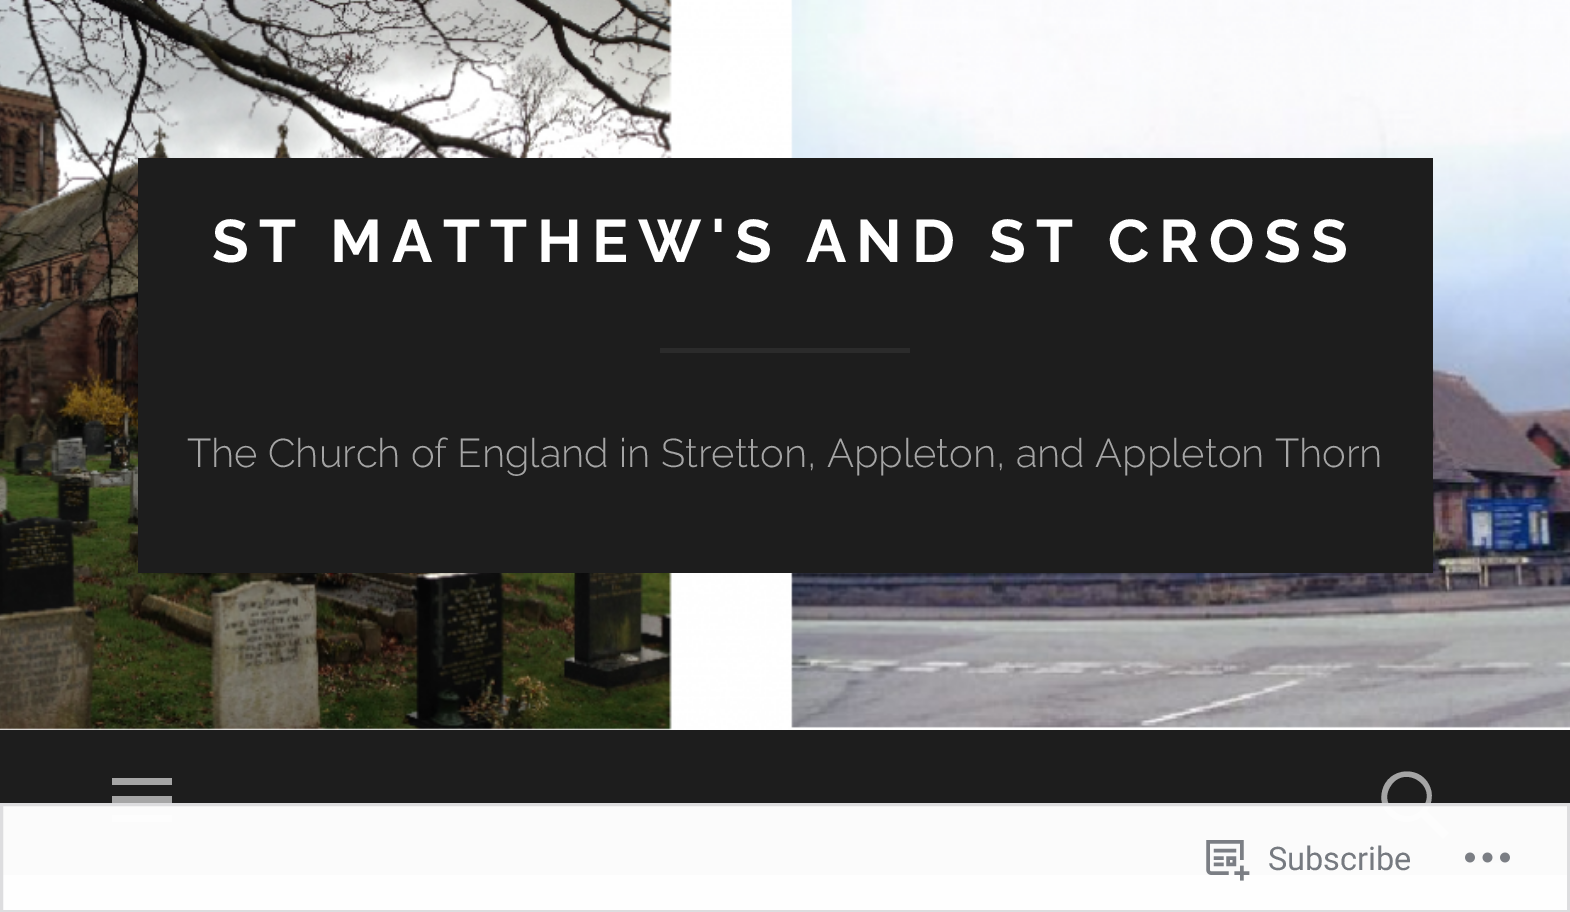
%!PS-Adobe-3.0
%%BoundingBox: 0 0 1570 912
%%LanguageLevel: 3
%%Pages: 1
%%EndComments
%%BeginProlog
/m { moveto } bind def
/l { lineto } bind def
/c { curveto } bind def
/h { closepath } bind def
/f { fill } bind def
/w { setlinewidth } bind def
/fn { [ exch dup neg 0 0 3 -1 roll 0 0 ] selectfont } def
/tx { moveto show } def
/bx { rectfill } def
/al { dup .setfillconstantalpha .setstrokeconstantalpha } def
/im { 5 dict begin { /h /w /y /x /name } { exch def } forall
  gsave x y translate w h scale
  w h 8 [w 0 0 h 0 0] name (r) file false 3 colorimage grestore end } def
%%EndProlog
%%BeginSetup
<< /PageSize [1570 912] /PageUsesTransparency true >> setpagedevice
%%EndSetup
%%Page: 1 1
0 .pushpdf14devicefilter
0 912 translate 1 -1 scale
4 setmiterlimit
0.8 setgray
0 0 1570 912 bx
(image0.raw) 0 0 1570 730 im
0.114 setgray
138 158 1295 415 bx
/Raleway-Bold 60 fn
1 setgray
212 262 m 10 0 (ST MATTHEW'S AND ST CROSS) ashow
0.169 setgray
660 348 250 5 bx
/Raleway-Light 40 fn
0.647 setgray
(The Church of England in Stretton, Appleton, and Appleton Thorn) 187 467 tx
0.114 setgray
0 730 1570 145 bx
0.647 setgray
112 822 m 112 815 l 172 815 l 172 822 l h 112 778 m 172 778 l 172 785 l 112 785 l h 112 804 m 112 796 l 172 796 l 172 804 l h f
1449 833 m 1443 839 l 1421 817 l 1409 826 1391 822 1384 808 c 1381 803 1381 797 1382 792 c 1387 766 1424 764 1431 790 c 1433 797 1431 805 1427 811 c h 1390 787 m 1377 809 1411 829 1424 806 c 1437 784 1403 764 1390 787 c h f
0.98 al
1 setgray
0 803 1570 109 bx
0.863 0.863 0.871 setrgbcolor
3 w
1.5 804.5 1567 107 rectstroke
1 al
(image1.raw) 1206 840 44 41 im
/Roboto-Regular 32.5 fn
0.463 0.478 0.502 setrgbcolor
(Subscribe) 1268 870 tx
(image2.raw) 1465 852 45 11 im
.poppdf14devicefilter showpage
%%EOF
